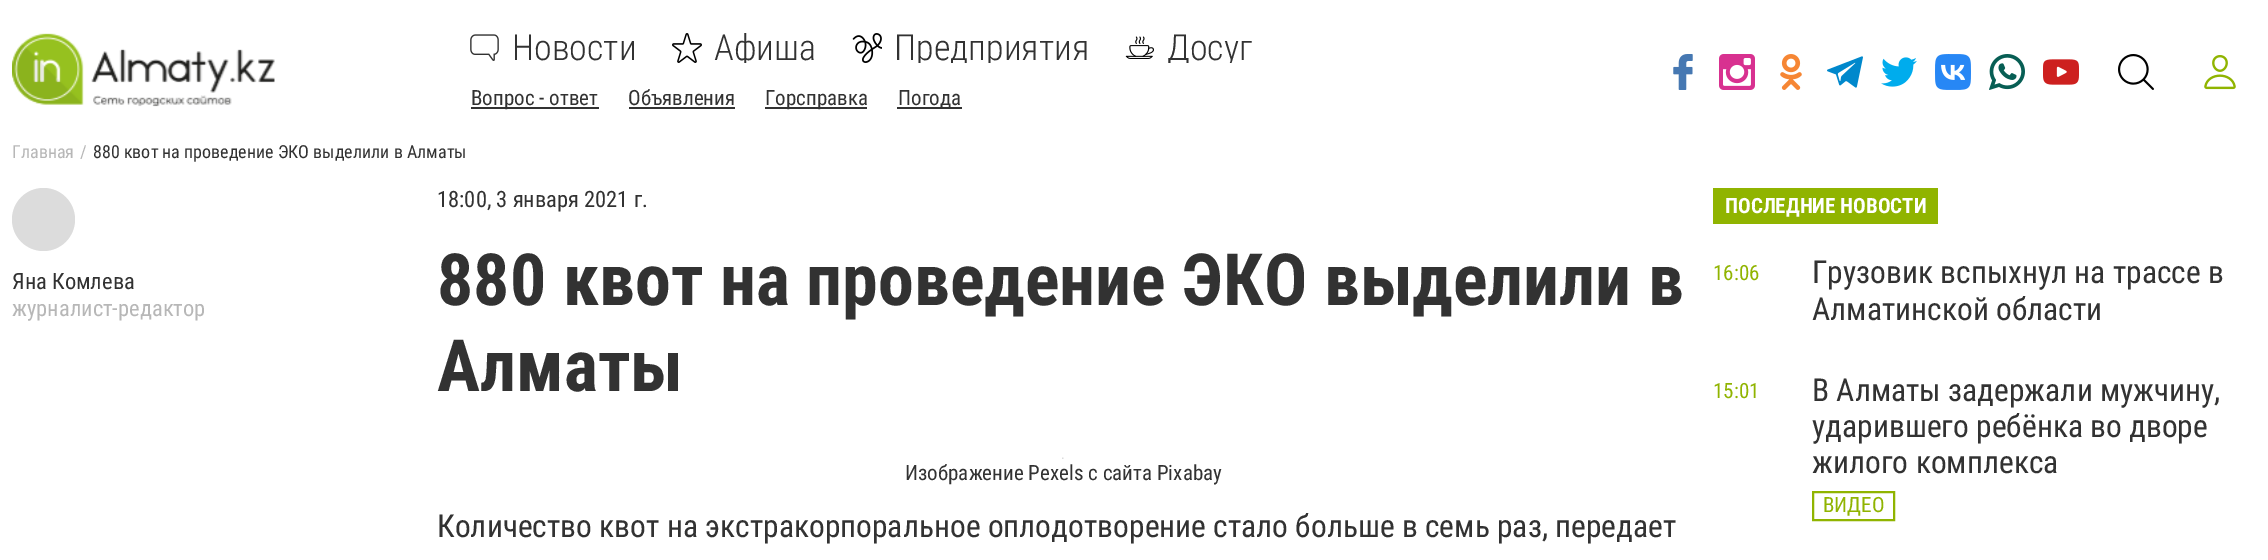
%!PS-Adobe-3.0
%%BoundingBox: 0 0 2268 560
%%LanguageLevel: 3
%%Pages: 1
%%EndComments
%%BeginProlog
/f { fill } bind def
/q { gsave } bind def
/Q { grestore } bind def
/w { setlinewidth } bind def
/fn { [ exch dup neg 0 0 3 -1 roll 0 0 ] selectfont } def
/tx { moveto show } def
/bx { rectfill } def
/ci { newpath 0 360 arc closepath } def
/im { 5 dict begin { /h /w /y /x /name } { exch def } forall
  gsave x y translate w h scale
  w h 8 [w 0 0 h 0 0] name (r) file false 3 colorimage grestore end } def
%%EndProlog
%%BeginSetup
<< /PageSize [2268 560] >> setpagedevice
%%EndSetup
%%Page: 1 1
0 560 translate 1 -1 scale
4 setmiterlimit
1 setgray
0 0 2268 560 bx
(image0.raw) 12 33 263 74 im
(image1.raw) 470 34 29 27 im
/RobotoCondensed-Light 36 fn
0.196 setgray
(Новости) 512 60 tx
(image2.raw) 672 33 30 30 im
q
672 33 144 30 rectclip
(Афиша) 714 60 tx
Q
(image3.raw) 852 33 30 30 im
q
852 33 237 30 rectclip
(Предприятия) 894 60 tx
Q
(image4.raw) 1125 36 29 23 im
q
1125 33 128 30 rectclip
(Досуг) 1167 60 tx
Q
471 107 128 2 bx
/RobotoCondensed-Regular 21 fn
(Вопрос - ответ) 471 105 tx
(Объявления) 628 105 tx
629 107 106 2 bx
765 107 102 2 bx
(Горсправка) 765 105 tx
897 107 65 2 bx
(Погода) 898 105 tx
(image5.raw) 1673 54 20 36 im
(image6.raw) 1719 54 36 36 im
(image7.raw) 1780 54 22 36 im
(image8.raw) 1827 56 36 32 im
(image9.raw) 1881 57 36 30 im
(image10.raw) 1935 54 36 36 im
(image11.raw) 1989 54 36 36 im
(image12.raw) 2043 59 36 26 im
(image13.raw) 2118 54 36 36 im
(image14.raw) 2204 55 32 35 im
/RobotoCondensed-Regular 18 fn
0.718 setgray
(Главная) 12 158 tx
(/) 80 158 tx
0.196 setgray
(880 квот на проведение ЭКО выделили в Алматы) 93 158 tx
0.863 setgray
43.5 219.5 31.5 ci f
/RobotoCondensed-Regular 22.5 fn
0.196 setgray
(Яна Комлева) 12 289 tx
0.718 setgray
(журналист-редактор) 12 316 tx
0.196 setgray
(18:00, 3 января 2021 г.) 437 207 tx
/RobotoCondensed-Bold 72 fn
(880 квот на проведение ЭКО выделили в) 437 305 tx
(Алматы) 437 391 tx
(image15.raw) 1062 457 2 2 im
/RobotoCondensed-Regular 21 fn
(Изображение Pexels с сайта Pixabay) 905 480 tx
/RobotoCondensed-Regular 31.5 fn
(Количество квот на экстракорпоральное оплодотворение стало больше в семь раз, передает) 437 537 tx
0.565 0.706 0 setrgbcolor
1713 188 225 36 bx
/RobotoCondensed-Bold 21 fn
1 setgray
(ПОСЛЕДНИЕ НОВОСТИ) 1725 213 tx
/RobotoCondensed-Regular 21 fn
0.565 0.706 0 setrgbcolor
(16:06) 1713 280 tx
/RobotoCondensed-Regular 31.5 fn
0.196 setgray
(Грузовик вспыхнул на трассе в) 1812 283 tx
(Алматинской области) 1812 320 tx
/RobotoCondensed-Regular 21 fn
0.565 0.706 0 setrgbcolor
(15:01) 1713 398 tx
/RobotoCondensed-Regular 31.5 fn
0.196 setgray
(В Алматы задержали мужчину,) 1812 401 tx
(ударившего ребёнка во дворе) 1812 437 tx
(жилого комплекса) 1812 473 tx
0.565 0.706 0 setrgbcolor
2 w
1813 492 81 28 rectstroke
/RobotoCondensed-Regular 21 fn
(ВИДЕО) 1823 512 tx
showpage
%%EOF
